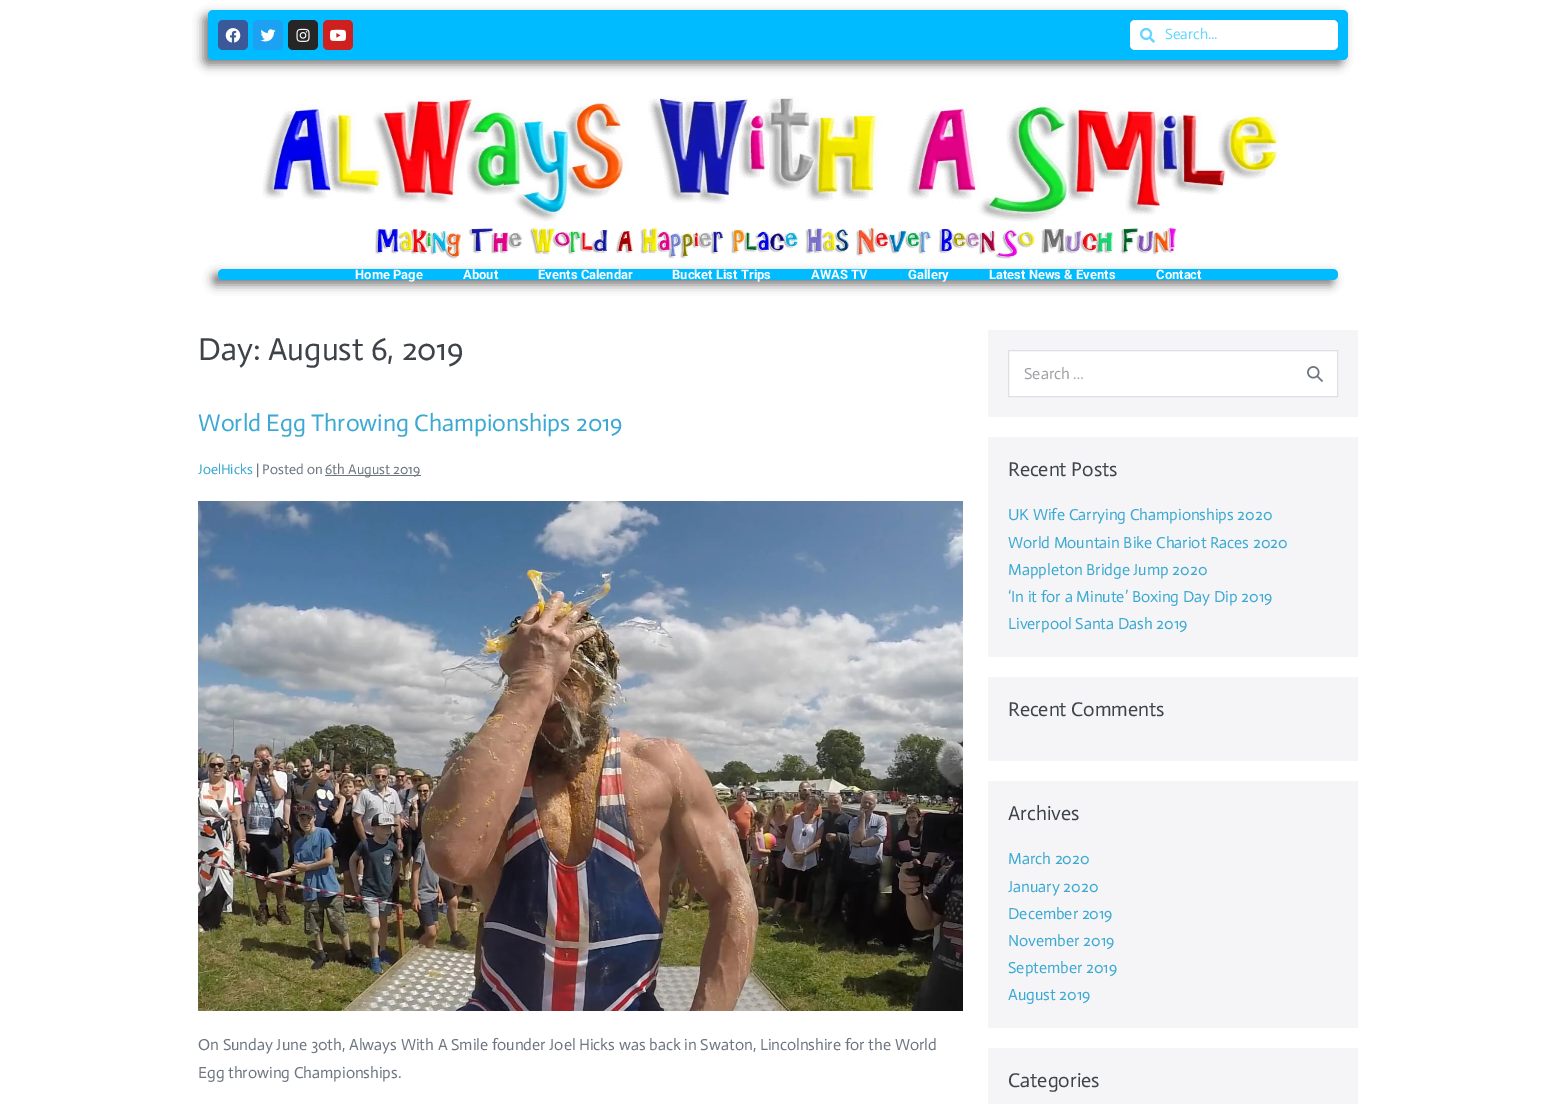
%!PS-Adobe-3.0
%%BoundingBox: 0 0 1556 1104
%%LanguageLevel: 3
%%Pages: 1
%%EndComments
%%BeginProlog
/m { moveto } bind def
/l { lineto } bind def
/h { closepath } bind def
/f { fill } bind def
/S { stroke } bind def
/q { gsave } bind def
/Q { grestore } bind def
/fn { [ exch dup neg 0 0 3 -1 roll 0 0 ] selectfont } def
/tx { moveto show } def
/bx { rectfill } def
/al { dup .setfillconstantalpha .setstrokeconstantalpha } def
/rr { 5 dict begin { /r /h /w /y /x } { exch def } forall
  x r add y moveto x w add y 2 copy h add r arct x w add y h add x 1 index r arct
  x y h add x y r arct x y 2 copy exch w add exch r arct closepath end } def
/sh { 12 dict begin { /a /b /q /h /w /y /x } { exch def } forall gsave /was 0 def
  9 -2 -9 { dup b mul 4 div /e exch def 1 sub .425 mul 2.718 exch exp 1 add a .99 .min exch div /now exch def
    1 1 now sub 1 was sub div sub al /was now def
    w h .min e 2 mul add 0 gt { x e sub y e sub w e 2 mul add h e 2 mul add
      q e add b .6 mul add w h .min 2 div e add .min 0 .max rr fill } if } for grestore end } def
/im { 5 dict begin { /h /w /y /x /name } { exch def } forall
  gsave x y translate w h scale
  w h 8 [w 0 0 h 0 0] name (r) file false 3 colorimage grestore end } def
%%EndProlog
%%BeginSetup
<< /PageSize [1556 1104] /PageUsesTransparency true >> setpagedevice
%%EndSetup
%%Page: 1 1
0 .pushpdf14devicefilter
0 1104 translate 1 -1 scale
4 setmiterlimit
1 setgray
0 0 1556 1104 bx
0 setgray
203 15 1140 50 5 5 0.5 sh
0 0.733 1 setrgbcolor
208 10 1140 50 5 rr f
0.231 0.349 0.596 setrgbcolor
218 20 30 30 5 rr f
(image0.raw) 225 28 16 15 im
0.114 0.631 0.949 setrgbcolor
253 20 30 30 5 rr f
(image1.raw) 260 29 16 13 im
0.149 setgray
288 20 30 30 5 rr f
(image2.raw) 296 28 14 14 im
0.804 0.125 0.122 setrgbcolor
323 20 30 30 5 rr f
(image3.raw) 330 29 16 12 im
1 setgray
1130 20 208 30 5 rr f
(image4.raw) 1140 27 15 16 im
/Actor-Regular 15 fn
0.4 0.839 1 setrgbcolor
(Search...) 1165 39 tx
(image5.raw) 261 96 1018 127 im
(image6.raw) 375 227 802 32 im
0 setgray
213 274 1120 11 5 5 0.5 sh
0 0.733 1 setrgbcolor
218 269 1120 11 5 rr f
/Roboto-Bold 13 fn
1 setgray
(Home Page) 355 279 tx
(About) 463 279 tx
(Events Calendar) 538 279 tx
(Bucket List Trips) 672 279 tx
(AWAS TV) 811 279 tx
(Gallery) 908 279 tx
(Latest News & Events) 989 279 tx
(Contact) 1156 279 tx
/Actor-Regular 32 fn
0.243 0.263 0.286 setrgbcolor
(Day: August 6, 2019) 198 360 tx
/Actor-Regular 24 fn
0.231 0.663 0.824 setrgbcolor
(World Egg Throwing Championships 2019) 198 431 tx
/Actor-Regular 14 fn
(JoelHicks) 198 474 tx
0.427 0.463 0.502 setrgbcolor
(| Posted on) 256 474 tx
325 475 96 1 bx
(6th August 2019) 325 474 tx
(image7.raw) 198 501 765 510 im
/Actor-Regular 16 fn
(On Sunday June 30th, Always With A Smile founder Joel Hicks was back in Swaton, Lincolnshire for the World) 198 1050 tx
(Egg throwing Championships.) 198 1078 tx
0.961 0.961 0.969 setrgbcolor
988 330 370 87 bx
1 setgray
1008.5 350.5 m 1337.5 350.5 l 1337.5 396.5 l 1008.5 396.5 l h q f Q
0.871 0.871 0.898 setrgbcolor
S
0.624 0.631 0.643 setrgbcolor
(Search …) 1024 379 tx
(image8.raw) 1307 366 16 16 im
0.961 0.961 0.969 setrgbcolor
988 437 370 220 bx
/Actor-Regular 20 fn
0.243 0.263 0.286 setrgbcolor
(Recent Posts) 1008 476 tx
/Actor-Regular 16 fn
0.231 0.663 0.824 setrgbcolor
(UK Wife Carrying Championships 2020) 1008 520 tx
(World Mountain Bike Chariot Races 2020) 1008 548 tx
(Mappleton Bridge Jump 2020) 1008 575 tx
(‘In it for a Minute’ Boxing Day Dip 2019) 1008 602 tx
(Liverpool Santa Dash 2019) 1008 629 tx
0.961 0.961 0.969 setrgbcolor
988 677 370 84 bx
/Actor-Regular 20 fn
0.243 0.263 0.286 setrgbcolor
(Recent Comments) 1008 716 tx
0.961 0.961 0.969 setrgbcolor
988 781 370 247 bx
0.243 0.263 0.286 setrgbcolor
(Archives) 1008 820 tx
/Actor-Regular 16 fn
0.231 0.663 0.824 setrgbcolor
(March 2020) 1008 864 tx
(January 2020) 1008 892 tx
(December 2019) 1008 919 tx
(November 2019) 1008 946 tx
(September 2019) 1008 973 tx
(August 2019) 1008 1000 tx
0.961 0.961 0.969 setrgbcolor
988 1048 370 56 bx
/Actor-Regular 20 fn
0.243 0.263 0.286 setrgbcolor
(Categories) 1008 1087 tx
.poppdf14devicefilter showpage
%%EOF
